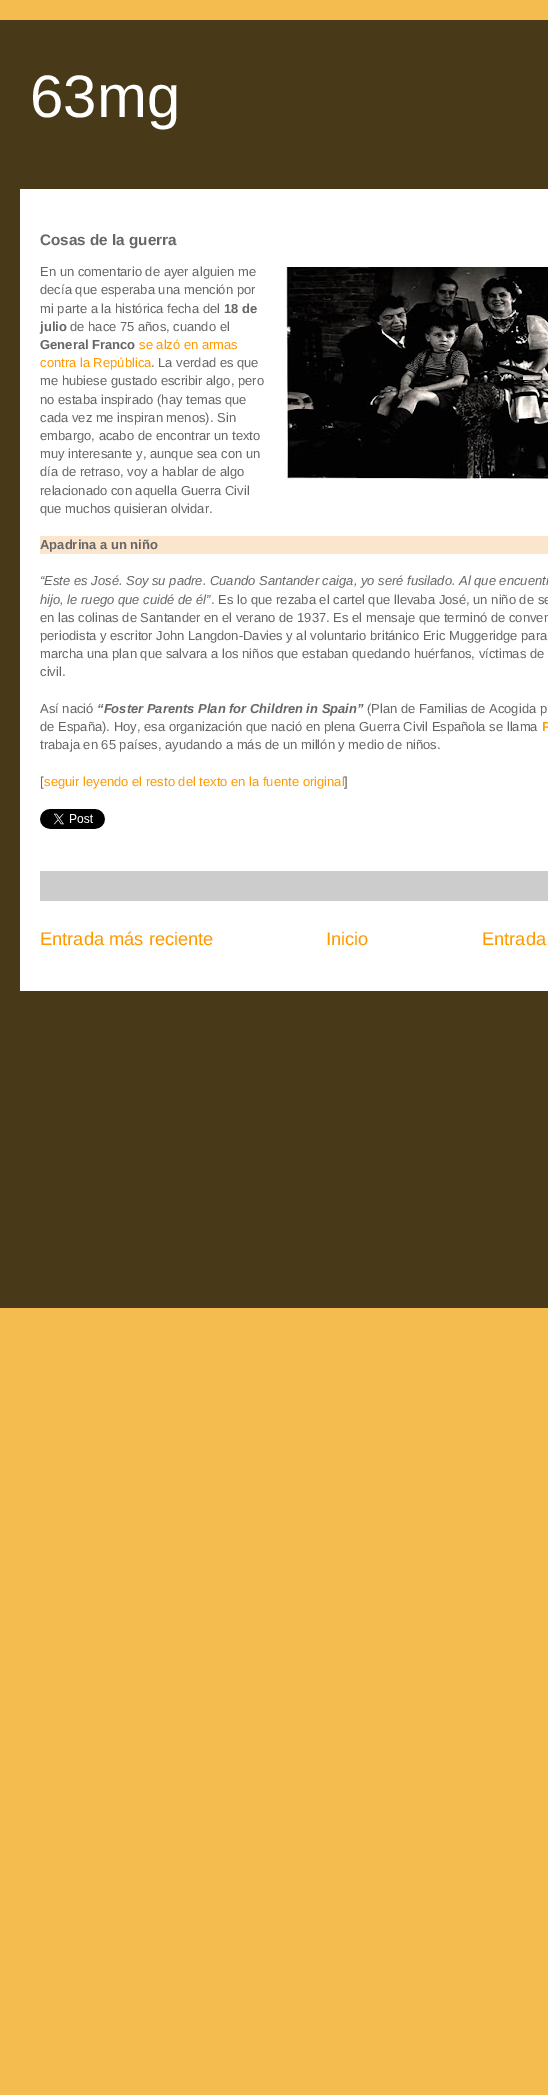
%!PS-Adobe-3.0
%%BoundingBox: 0 0 548 2095
%%LanguageLevel: 3
%%Pages: 1
%%EndComments
%%BeginProlog
/fn { [ exch dup neg 0 0 3 -1 roll 0 0 ] selectfont } def
/tx { moveto show } def
/bx { rectfill } def
/im { 5 dict begin { /h /w /y /x /name } { exch def } forall
  gsave x y translate w h scale
  w h 8 [w 0 0 h 0 0] name (r) file false 3 colorimage grestore end } def
%%EndProlog
%%BeginSetup
<< /PageSize [548 2095] >> setpagedevice
%%EndSetup
%%Page: 1 1
0 2095 translate 1 -1 scale
4 setmiterlimit
0.957 0.737 0.31 setrgbcolor
0 0 548 2095 bx
0.282 0.224 0.094 setrgbcolor
0 20 548 1288 bx
/LiberationSans-Regular 60 fn
1 setgray
(63mg) 30 117 tx
20 189 528 802 bx
/LiberationSans-Bold 15.25 fn
0.4 setgray
(Cosas de la guerra) 40 245 tx
/LiberationSans-Regular 13 fn
(En un comentario de ayer alguien me) 40 276 tx
(image0.raw) 286 267 262 213 im
(decía que esperaba una mención por) 40 294 tx
(mi parte a la histórica fecha del) 40 313 tx
/LiberationSans-Bold 13 fn
(18 de) 224 313 tx
(julio) 40 331 tx
/LiberationSans-Regular 13 fn
(de hace 75 años, cuando el) 70 331 tx
/LiberationSans-Bold 13 fn
(General Franco) 40 349 tx
/LiberationSans-Regular 13 fn
1 0.6 0 setrgbcolor
(se alzó en armas) 139 349 tx
(contra la República) 40 367 tx
0.4 setgray
(. La verdad es que) 151 367 tx
(me hubiese gustado escribir algo, pero) 40 385 tx
(no estaba inspirado \(hay temas que) 40 404 tx
(cada vez me inspiran menos\). Sin) 40 422 tx
(embargo, acabo de encontrar un texto) 40 440 tx
(muy interesante y, aunque sea con un) 40 458 tx
(día de retraso, voy a hablar de algo) 40 476 tx
(relacionado con aquella Guerra Civil) 40 495 tx
(que muchos quisieran olvidar.) 40 513 tx
0.988 0.898 0.804 setrgbcolor
40 536 508 18 bx
/LiberationSans-Bold 13 fn
0.4 setgray
(Apadrina a un niño) 40 549 tx
/LiberationSans-Italic 13 fn
(“Este es José. Soy su padre. Cuando Santander caiga, yo seré fusilado. Al que encuentr) 40 585 tx
(hijo, le ruego que cuidé de él”) 40 604 tx
/LiberationSans-Regular 13 fn
(. Es lo que rezaba el cartel que llevaba José, un niño de se) 211 604 tx
(en las colinas de Santander en el verano de 1937. Es el mensaje que terminó de conven) 40 622 tx
(periodista y escritor John Langdon-Davies y al voluntario británico Eric Muggeridge para) 40 640 tx
(marcha una plan que salvara a los niños que estaban quedando huérfanos, víctimas de) 40 658 tx
(civil.) 40 676 tx
(Así nació) 40 713 tx
/LiberationSans-BoldItalic 13 fn
(“Foster Parents Plan for Children in Spain”) 97 713 tx
/LiberationSans-Regular 13 fn
(\(Plan de Familias de Acogida p) 367 713 tx
(de España\). Hoy, esa organización que nació en plena Guerra Civil Española se llama) 40 731 tx
/LiberationSans-Bold 13 fn
1 0.6 0 setrgbcolor
(P) 542 731 tx
/LiberationSans-Regular 13 fn
0.4 setgray
(trabaja en 65 países, ayudando a más de un millón y medio de niños.) 40 749 tx
([) 40 786 tx
1 0.6 0 setrgbcolor
(seguir leyendo el resto del texto en la fuente original) 44 786 tx
0.4 setgray
(]) 344 786 tx
(image1.raw) 40 809 65 20 im
0.8 setgray
40 871 508 30 bx
/LiberationSans-Regular 18.25 fn
1 0.6 0 setrgbcolor
(Entrada más reciente) 40 945 tx
(Inicio) 326 945 tx
(Entrada) 482 945 tx
showpage
%%EOF
